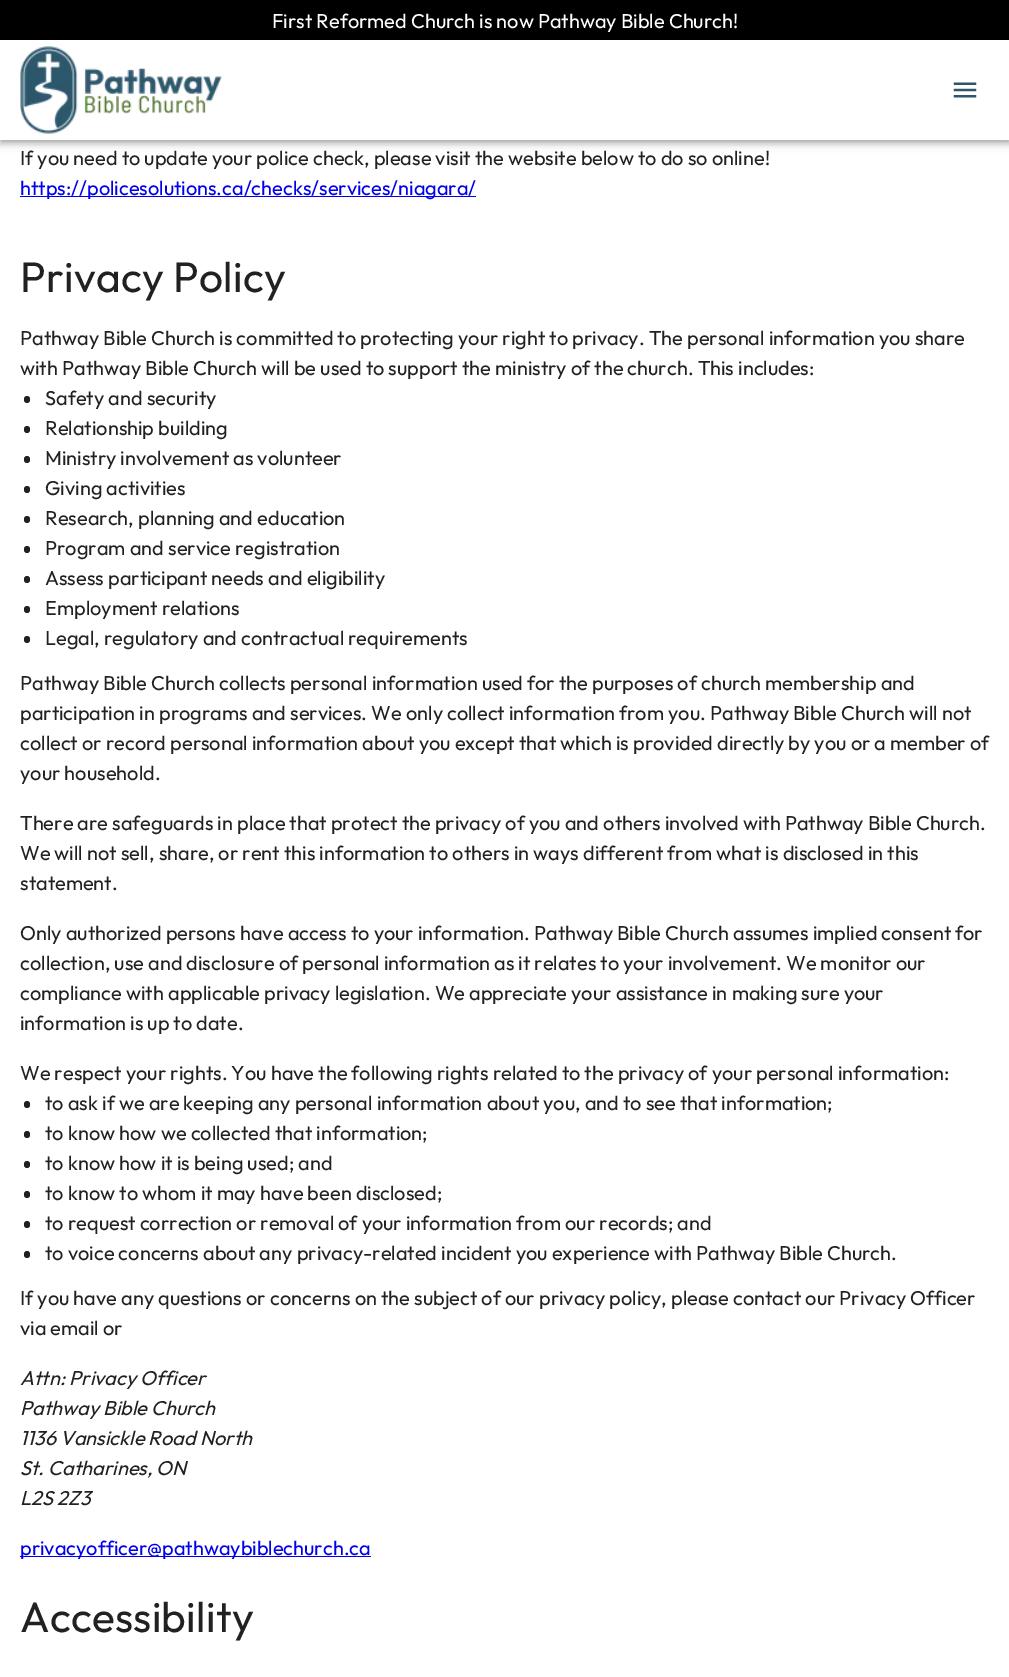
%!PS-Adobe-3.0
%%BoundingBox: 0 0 1009 1677
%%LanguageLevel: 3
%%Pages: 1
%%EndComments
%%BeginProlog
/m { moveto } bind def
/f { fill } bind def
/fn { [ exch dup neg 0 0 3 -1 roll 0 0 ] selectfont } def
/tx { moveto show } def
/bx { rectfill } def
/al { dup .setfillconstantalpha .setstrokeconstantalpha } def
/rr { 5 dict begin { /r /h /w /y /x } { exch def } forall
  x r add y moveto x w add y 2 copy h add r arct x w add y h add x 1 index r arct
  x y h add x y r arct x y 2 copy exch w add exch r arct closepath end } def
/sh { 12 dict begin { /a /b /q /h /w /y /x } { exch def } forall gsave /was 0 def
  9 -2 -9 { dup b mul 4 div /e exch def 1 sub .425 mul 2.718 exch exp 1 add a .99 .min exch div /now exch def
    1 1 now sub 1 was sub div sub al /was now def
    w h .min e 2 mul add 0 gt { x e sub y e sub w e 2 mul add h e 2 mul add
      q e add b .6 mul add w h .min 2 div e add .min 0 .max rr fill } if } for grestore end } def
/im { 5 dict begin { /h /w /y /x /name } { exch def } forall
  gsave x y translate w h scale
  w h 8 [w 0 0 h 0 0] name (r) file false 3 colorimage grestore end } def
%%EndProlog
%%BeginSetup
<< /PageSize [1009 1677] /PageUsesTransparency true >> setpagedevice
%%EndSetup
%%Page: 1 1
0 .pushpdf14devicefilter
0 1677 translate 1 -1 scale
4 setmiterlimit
1 setgray
0 0 1009 1677 bx
0 setgray
0 1 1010 140 0 6 0.12 sh
0 5 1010 140 0 3 0.14 sh
1 4 1008 137 0 2.5 0.2 sh
1 setgray
0 40 1009 100 bx
0 setgray
0 0 1009 40 bx
/Outfit-Thin 20 fn
1 setgray
(First Reformed Church is now Pathway Bible Church!) 272 28 tx
(image0.raw) 20 46 202 88 im
(image1.raw) 953 82 24 16 im
0.129 setgray
(If you need to update your police check, please visit the website below to do so online!) 20 165 tx
0 0 0.933 setrgbcolor
20 196 456 1 bx
(https://policesolutions.ca/checks/services/niagara/) 20 195 tx
/Outfit-Thin 42.5 fn
0.129 setgray
20 292 m 0.25 0 (Privacy Policy) ashow
/Outfit-Thin 20 fn
(Pathway Bible Church is committed to protecting your right to privacy. The personal information you share) 20 345 tx
(with Pathway Bible Church will be used to support the ministry of the church. This includes:) 20 375 tx
24 396 6 7 3 rr f
(Safety and security) 45 405 tx
24 426 6 7 3 rr f
(Relationship building) 45 435 tx
24 456 6 7 3 rr f
(Ministry involvement as volunteer) 45 465 tx
24 486 6 7 3 rr f
(Giving activities) 45 495 tx
24 516 6 7 3 rr f
(Research, planning and education) 45 525 tx
24 546 6 7 3 rr f
(Program and service registration) 45 555 tx
24 576 6 7 3 rr f
(Assess participant needs and eligibility) 45 585 tx
24 606 6 7 3 rr f
(Employment relations) 45 615 tx
24 636 6 7 3 rr f
(Legal, regulatory and contractual requirements) 45 645 tx
(Pathway Bible Church collects personal information used for the purposes of church membership and) 20 690 tx
(participation in programs and services. We only collect information from you. Pathway Bible Church will not) 20 720 tx
(collect or record personal information about you except that which is provided directly by you or a member of) 20 750 tx
(your household.) 20 780 tx
(There are safeguards in place that protect the privacy of you and others involved with Pathway Bible Church.) 20 830 tx
(We will not sell, share, or rent this information to others in ways different from what is disclosed in this) 20 860 tx
(statement.) 20 890 tx
(Only authorized persons have access to your information. Pathway Bible Church assumes implied consent for) 20 940 tx
(collection, use and disclosure of personal information as it relates to your involvement. We monitor our) 20 970 tx
(compliance with applicable privacy legislation. We appreciate your assistance in making sure your) 20 1000 tx
(information is up to date.) 20 1030 tx
(We respect your rights. You have the following rights related to the privacy of your personal information:) 20 1080 tx
24 1101 6 7 3 rr f
(to ask if we are keeping any personal information about you, and to see that information;) 45 1110 tx
24 1131 6 7 3 rr f
(to know how we collected that information;) 45 1140 tx
24 1161 6 7 3 rr f
(to know how it is being used; and) 45 1170 tx
24 1191 6 7 3 rr f
(to know to whom it may have been disclosed;) 45 1200 tx
24 1221 6 7 3 rr f
(to request correction or removal of your information from our records; and) 45 1230 tx
24 1251 6 7 3 rr f
(to voice concerns about any privacy-related incident you experience with Pathway Bible Church.) 45 1260 tx
(If you have any questions or concerns on the subject of our privacy policy, please contact our Privacy Officer) 20 1305 tx
(via email or) 20 1335 tx
/Outfit-ThinItalic 20 fn
(Attn: Privacy Officer) 20 1385 tx
(Pathway Bible Church) 20 1415 tx
(1136 Vansickle Road North) 20 1445 tx
(St. Catharines, ON) 20 1475 tx
(L2S 2Z3) 20 1505 tx
0 0 0.933 setrgbcolor
20 1556 351 1 bx
/Outfit-Thin 20 fn
(privacyofficer@pathwaybiblechurch.ca) 20 1555 tx
/Outfit-Thin 42.5 fn
0.129 setgray
20 1632 m 0.25 0 (Accessibility) ashow
.poppdf14devicefilter showpage
%%EOF
